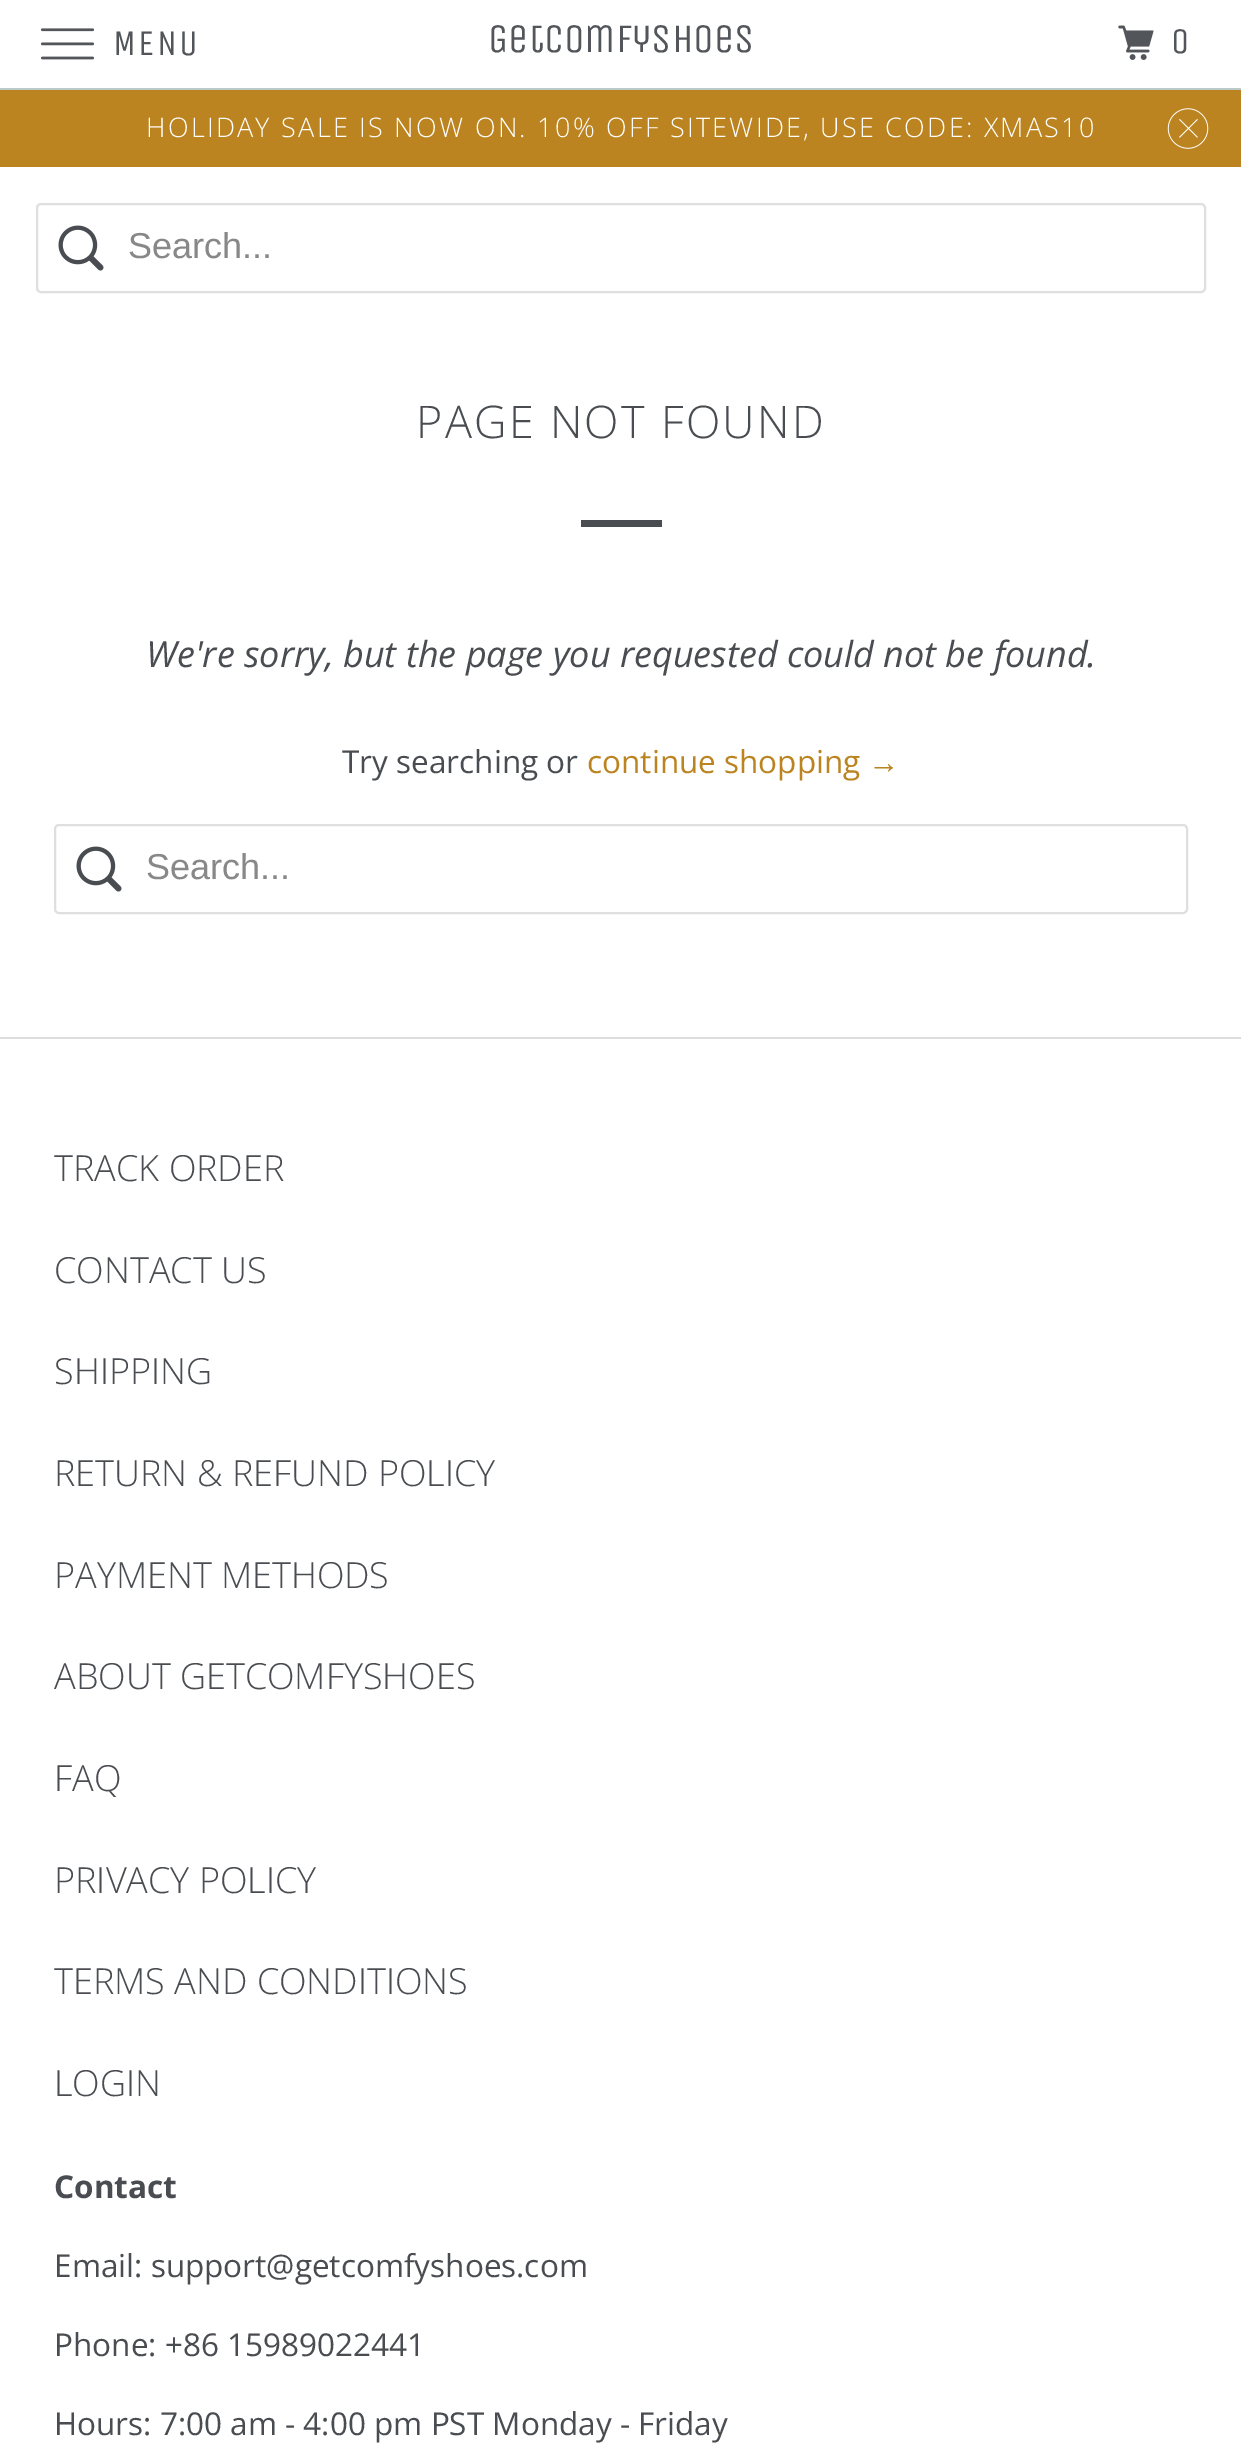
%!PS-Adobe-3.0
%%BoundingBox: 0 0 1241 2448
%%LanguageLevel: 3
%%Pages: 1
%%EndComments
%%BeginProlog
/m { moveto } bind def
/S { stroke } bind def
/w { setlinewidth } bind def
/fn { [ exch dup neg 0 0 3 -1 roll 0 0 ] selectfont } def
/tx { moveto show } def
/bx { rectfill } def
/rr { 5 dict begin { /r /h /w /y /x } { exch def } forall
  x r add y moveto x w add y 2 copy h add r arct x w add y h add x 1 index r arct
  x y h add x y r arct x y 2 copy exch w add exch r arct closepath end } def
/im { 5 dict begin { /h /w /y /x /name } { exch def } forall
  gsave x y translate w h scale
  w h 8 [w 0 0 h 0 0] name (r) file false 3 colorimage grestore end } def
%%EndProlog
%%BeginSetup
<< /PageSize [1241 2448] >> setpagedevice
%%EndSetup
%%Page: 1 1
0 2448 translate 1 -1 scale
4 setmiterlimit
1 setgray
0 0 1241 2448 bx
0.737 0.788 0.788 setrgbcolor
0 88 1241 2 bx
(image0.raw) 40 28 55 32 im
/UnicaOne-Regular 36 fn
0.322 0.333 0.349 setrgbcolor
113 55 m 2.25 0 (MENU) ashow
/UnicaOne-Regular 40.5 fn
(Getcomfyshoes) 488 52 tx
(image1.raw) 1118 25 36 35 im
/UnicaOne-Regular 36 fn
1171 53 m 2.25 0 (0) ashow
0.737 0.518 0.125 setrgbcolor
0 90 1241 77 bx
/OpenSans-Light 27 fn
1 setgray
146 137 m 2.25 0 (HOLIDAY SALE IS NOW ON. 10% OFF SITEWIDE, USE CODE: XMAS10) ashow
(image2.raw) 1167 108 42 41 im
0.875 setgray
2 w
37 204 1168 88 4 rr S
(image3.raw) 58 225 46 46 im
/LiberationSans-Regular 36 fn
0.533 setgray
(Search...) 128 258 tx
/OpenSans-Light 45 fn
0.286 0.298 0.314 setrgbcolor
416 438 m 2.25 0 (PAGE NOT FOUND) ashow
581 520 81 7 bx
/OpenSans-Italic 36 fn
(We're sorry, but the page you requested could not be found.) 146 667 tx
/OpenSans-Regular 31.5 fn
(Try searching or) 342 773 tx
0.737 0.518 0.125 setrgbcolor
(continue shopping) 587 773 tx
/LiberationSans-Regular 31.5 fn
(→) 868 773 tx
0.875 setgray
55 825 1132 88 4 rr S
(image3.raw) 76 846 46 46 im
/LiberationSans-Regular 36 fn
0.533 setgray
(Search...) 146 879 tx
0.867 setgray
0 1037 1241 2 bx
/OpenSans-Light 36 fn
0.286 0.298 0.314 setrgbcolor
(TRACK ORDER) 54 1181 tx
(CONTACT US) 54 1283 tx
(SHIPPING) 54 1384 tx
(RETURN & REFUND POLICY) 54 1486 tx
(PAYMENT METHODS) 54 1588 tx
(ABOUT GETCOMFYSHOES) 54 1689 tx
(FAQ) 54 1791 tx
(PRIVACY POLICY) 54 1893 tx
(TERMS AND CONDITIONS) 54 1994 tx
(LOGIN) 54 2096 tx
/OpenSans-Bold 31.5 fn
(Contact) 54 2198 tx
/OpenSans-Regular 31.5 fn
(Email: support@getcomfyshoes.com) 54 2277 tx
(Phone: +86 15989022441) 54 2356 tx
(Hours: 7:00 am - 4:00 pm PST Monday - Friday) 54 2435 tx
showpage
%%EOF
